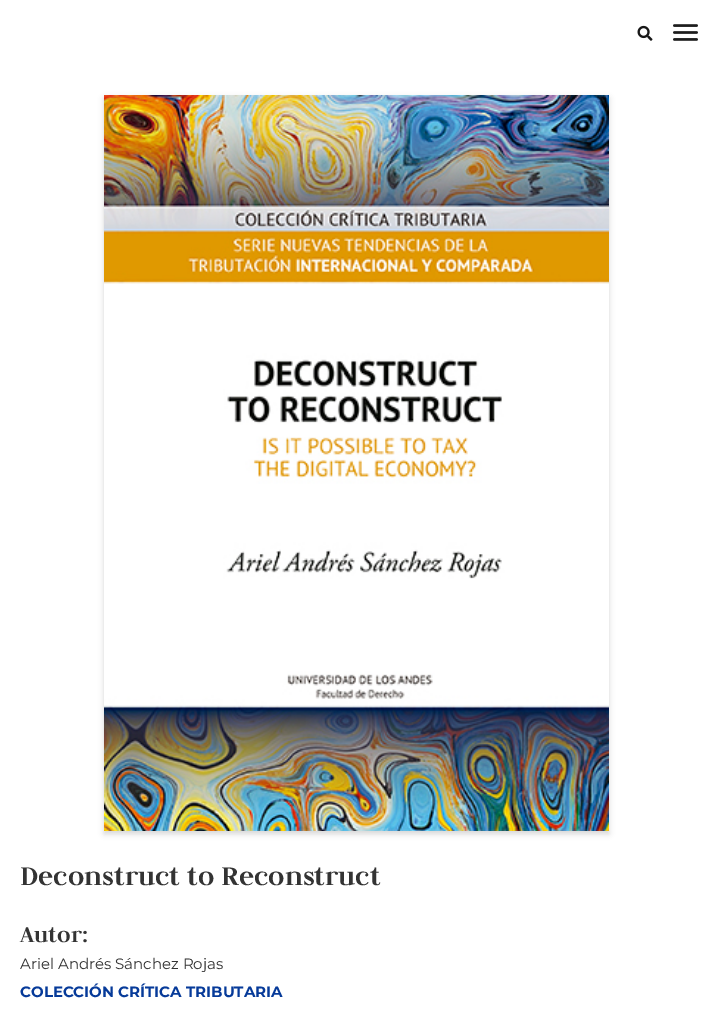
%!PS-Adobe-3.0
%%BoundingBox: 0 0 713 1011
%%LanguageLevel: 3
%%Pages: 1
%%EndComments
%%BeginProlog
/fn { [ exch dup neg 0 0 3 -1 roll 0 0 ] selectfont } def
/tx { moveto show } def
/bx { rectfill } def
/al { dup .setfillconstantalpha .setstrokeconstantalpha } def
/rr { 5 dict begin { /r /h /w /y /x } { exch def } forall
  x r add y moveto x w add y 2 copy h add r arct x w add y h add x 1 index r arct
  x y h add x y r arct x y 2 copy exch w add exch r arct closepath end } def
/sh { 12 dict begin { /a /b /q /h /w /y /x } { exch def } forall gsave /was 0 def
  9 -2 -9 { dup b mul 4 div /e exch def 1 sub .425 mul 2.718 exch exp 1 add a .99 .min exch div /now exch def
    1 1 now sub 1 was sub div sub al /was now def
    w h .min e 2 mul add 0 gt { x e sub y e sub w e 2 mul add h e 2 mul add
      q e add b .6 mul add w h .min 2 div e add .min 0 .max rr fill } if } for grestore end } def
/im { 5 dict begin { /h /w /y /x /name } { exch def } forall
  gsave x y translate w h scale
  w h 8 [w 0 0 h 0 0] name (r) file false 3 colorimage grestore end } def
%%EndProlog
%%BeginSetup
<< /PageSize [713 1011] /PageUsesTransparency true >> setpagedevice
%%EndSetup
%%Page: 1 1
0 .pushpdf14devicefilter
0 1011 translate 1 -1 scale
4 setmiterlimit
1 setgray
0 0 713 1011 bx
(image0.raw) 637 25 16 16 im
(image1.raw) 673 24 25 17 im
0 setgray
104 98 505 736 0 3 0.16 sh
(image2.raw) 104 95 505 736 im
/Judson-Bold 30 fn
0.2 setgray
(Deconstruct to Reconstruct) 20 885 tx
/Judson-Bold 25 fn
(Autor:) 20 942 tx
/Montserrat-Regular 15 fn
(Ariel Andrés Sánchez Rojas) 20 969 tx
/Montserrat-Bold 15 fn
0.024 0.227 0.6 setrgbcolor
(COLECCIÓN CRÍTICA TRIBUTARIA) 20 997 tx
.poppdf14devicefilter showpage
%%EOF
